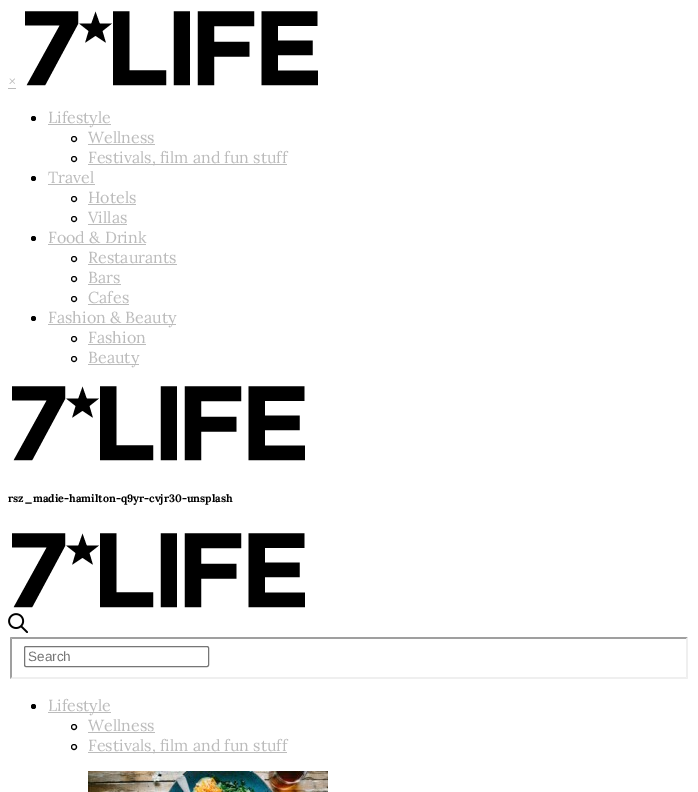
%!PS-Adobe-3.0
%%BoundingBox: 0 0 698 792
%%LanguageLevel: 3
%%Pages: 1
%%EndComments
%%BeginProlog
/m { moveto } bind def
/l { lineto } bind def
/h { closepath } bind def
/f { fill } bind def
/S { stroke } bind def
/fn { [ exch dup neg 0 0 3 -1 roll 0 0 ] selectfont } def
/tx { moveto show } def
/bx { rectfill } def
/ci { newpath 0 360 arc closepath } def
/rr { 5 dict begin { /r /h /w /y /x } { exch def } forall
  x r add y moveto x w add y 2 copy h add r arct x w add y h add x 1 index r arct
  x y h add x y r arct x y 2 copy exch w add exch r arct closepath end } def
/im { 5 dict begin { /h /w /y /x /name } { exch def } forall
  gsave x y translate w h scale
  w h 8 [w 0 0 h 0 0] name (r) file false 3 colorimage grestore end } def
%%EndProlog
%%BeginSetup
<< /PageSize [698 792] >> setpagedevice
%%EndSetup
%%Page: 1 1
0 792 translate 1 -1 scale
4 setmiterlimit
1 setgray
0 0 698 792 bx
/Lora-Regular 16 fn
0.733 setgray
(×) 8 87 tx
8 88 8 1 bx
(image0.raw) 25 11 293 75 im
0 setgray
33.5 118.5 2.5 ci f
0.733 setgray
48 124 63 1 bx
(Lifestyle) 48 123 tx
0 setgray
74 139 2.5 ci S
0.733 setgray
(Wellness) 88 143 tx
88 144 67 1 bx
0 setgray
74 159 2.5 ci S
0.733 setgray
88 164 199 1 bx
(Festivals, film and fun stuff) 88 163 tx
0 setgray
33.5 178.5 2.5 ci f
0.733 setgray
(Travel) 48 183 tx
48 184 47 1 bx
0 setgray
74 199 2.5 ci S
0.733 setgray
(Hotels) 88 203 tx
88 204 48 1 bx
0 setgray
74 219 2.5 ci S
0.733 setgray
(Villas) 88 223 tx
88 224 39 1 bx
0 setgray
33.5 238.5 2.5 ci f
0.733 setgray
(Food & Drink) 48 243 tx
48 244 98 1 bx
0 setgray
74 259 2.5 ci S
0.733 setgray
(Restaurants) 88 263 tx
88 264 89 1 bx
0 setgray
74 279 2.5 ci S
0.733 setgray
(Bars) 88 283 tx
88 284 33 1 bx
0 setgray
74 299 2.5 ci S
0.733 setgray
(Cafes) 88 303 tx
88 304 41 1 bx
0 setgray
33.5 318.5 2.5 ci f
0.733 setgray
48 324 128 1 bx
(Fashion & Beauty) 48 323 tx
0 setgray
74 339 2.5 ci S
0.733 setgray
(Fashion) 88 343 tx
88 344 58 1 bx
0 setgray
74 359 2.5 ci S
0.733 setgray
88 364 51 1 bx
(Beauty) 88 363 tx
(image0.raw) 12 386 293 75 im
/Lora-Bold 10.75 fn
0 setgray
(rsz_madie-hamilton-q9yr-cvjr30-unsplash) 8 502 tx
(image0.raw) 12 533 293 75 im
(image1.raw) 8 613 20 20 im
0.624 setgray
10 637 m 688 637 l 686 639 l 12 639 l h f
0.937 setgray
688 637 m 688 679 l 686 677 l 686 639 l h f
688 679 m 10 679 l 12 677 l 686 677 l h f
0.624 setgray
10 679 m 10 637 l 12 639 l 12 677 l h f
0.463 setgray
24.5 646.5 184 20 1.5 rr S
/LiberationSans-Regular 13.5 fn
0.459 setgray
(Search) 28 661 tx
0 setgray
33.5 706.5 2.5 ci f
0.733 setgray
48 712 63 1 bx
/Lora-Regular 16 fn
(Lifestyle) 48 711 tx
0 setgray
74 727 2.5 ci S
0.733 setgray
(Wellness) 88 731 tx
88 732 67 1 bx
0 setgray
74 747 2.5 ci S
0.733 setgray
88 752 199 1 bx
(Festivals, film and fun stuff) 88 751 tx
(image2.raw) 88 771 240 21 im
showpage
%%EOF
